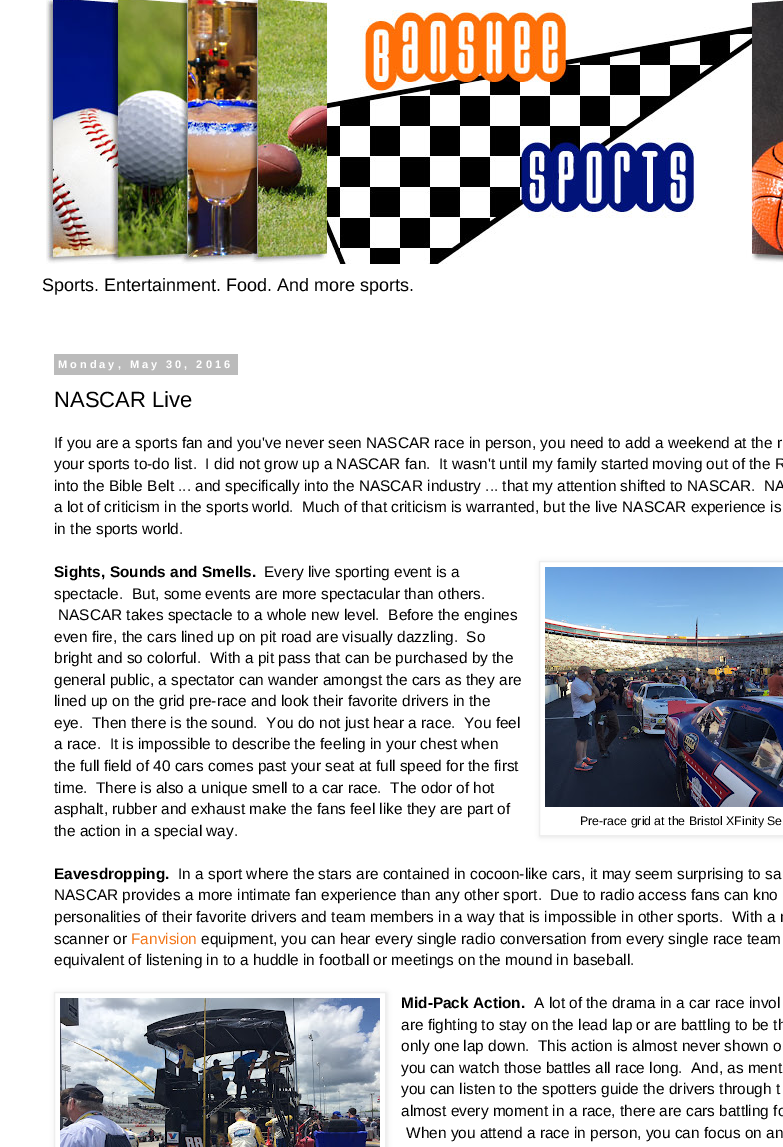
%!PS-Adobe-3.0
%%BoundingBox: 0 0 783 1147
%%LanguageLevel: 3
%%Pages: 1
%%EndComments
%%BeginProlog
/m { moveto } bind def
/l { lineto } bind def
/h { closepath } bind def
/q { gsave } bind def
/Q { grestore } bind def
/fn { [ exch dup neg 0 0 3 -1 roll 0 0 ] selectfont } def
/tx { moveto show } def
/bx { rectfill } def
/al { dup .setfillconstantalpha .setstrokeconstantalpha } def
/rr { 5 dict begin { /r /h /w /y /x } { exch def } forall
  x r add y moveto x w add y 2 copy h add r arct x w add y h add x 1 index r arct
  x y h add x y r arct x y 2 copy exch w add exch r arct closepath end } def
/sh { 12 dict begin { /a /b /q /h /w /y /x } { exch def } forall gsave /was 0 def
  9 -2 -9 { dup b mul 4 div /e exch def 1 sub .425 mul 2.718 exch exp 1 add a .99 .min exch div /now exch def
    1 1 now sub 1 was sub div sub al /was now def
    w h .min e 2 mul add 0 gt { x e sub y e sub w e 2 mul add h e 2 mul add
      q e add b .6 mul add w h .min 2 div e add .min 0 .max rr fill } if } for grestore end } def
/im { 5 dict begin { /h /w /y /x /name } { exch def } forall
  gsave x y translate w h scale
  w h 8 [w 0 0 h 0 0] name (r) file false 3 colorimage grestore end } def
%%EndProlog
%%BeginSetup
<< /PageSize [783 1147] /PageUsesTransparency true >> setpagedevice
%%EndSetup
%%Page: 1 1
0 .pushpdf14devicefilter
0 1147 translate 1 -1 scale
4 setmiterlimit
1 setgray
0 0 783 1147 bx
(image0.raw) 46 0 737 264 im
/LiberationSans-Regular 18 fn
0 setgray
(Sports. Entertainment. Food. And more sports.) 42 291 tx
0.733 setgray
54 354 184 21 bx
/LiberationSans-Bold 11 fn
1 setgray
58 368 m 3 0 (Monday, May 30, 2016) ashow
/LiberationSans-Regular 22 fn
0 setgray
(NASCAR Live) 54 407 tx
/LiberationSans-Regular 15.4 fn
(If you are a sports fan and you've never seen NASCAR race in person, you need to add a weekend at the r) 54 448 tx
(your sports to-do list.  I did not grow up a NASCAR fan.  It wasn't until my family started moving out of the R) 54 469 tx
(into the Bible Belt ... and specifically into the NASCAR industry ... that my attention shifted to NASCAR.  NA) 54 491 tx
(a lot of criticism in the sports world.  Much of that criticism is warranted, but the live NASCAR experience is) 54 512 tx
(in the sports world.) 54 534 tx
/LiberationSans-Bold 15.4 fn
(Sights, Sounds and Smells.) 54 577 tx
/LiberationSans-Regular 15.4 fn
(Every live sporting event is a) 264 577 tx
(spectacle.  But, some events are more spectacular than others.) 54 599 tx
(NASCAR takes spectacle to a whole new level.  Before the engines) 58 620 tx
(even fire, the cars lined up on pit road are visually dazzling.  So) 54 642 tx
(bright and so colorful.  With a pit pass that can be purchased by the) 54 663 tx
(general public, a spectator can wander amongst the cars as they are) 54 685 tx
(lined up on the grid pre-race and look their favorite drivers in the) 54 706 tx
(eye.  Then there is the sound.  You do not just hear a race.  You feel) 54 728 tx
(a race.  It is impossible to describe the feeling in your chest when) 54 749 tx
(the full field of 40 cars comes past your seat at full speed for the first) 54 771 tx
(time.  There is also a unique smell to a car race.  The odor of hot) 54 793 tx
(asphalt, rubber and exhaust make the fans feel like they are part of) 54 814 tx
q
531 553 m 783 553 l 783 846 l 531 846 l h 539 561 m 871 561 l 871 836 l 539 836 l h eoclip newpath
540 562 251 275 0 2.5 0.1 sh
Q
0.933 setgray
539.5 561.5 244 274 rectstroke
(image1.raw) 545 567 238 240 im
/LiberationSans-Regular 12.3 fn
0 setgray
(Pre-race grid at the Bristol XFinity Se) 580 825 tx
/LiberationSans-Regular 15.4 fn
(the action in a special way.) 54 836 tx
/LiberationSans-Bold 15.4 fn
(Eavesdropping.) 54 879 tx
/LiberationSans-Regular 15.4 fn
(In a sport where the stars are contained in cocoon-like cars, it may seem surprising to sa) 178 879 tx
(NASCAR provides a more intimate fan experience than any other sport.  Due to radio access fans can kno) 54 900 tx
(personalities of their favorite drivers and team members in a way that is impossible in other sports.  With a r) 54 922 tx
(scanner or) 54 944 tx
0.949 0.459 0.094 setrgbcolor
(Fanvision) 131 944 tx
0 setgray
(equipment, you can hear every single radio conversation from every single race team) 201 944 tx
(equivalent of listening in to a huddle in football or meetings on the mound in baseball.) 54 965 tx
q
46 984 m 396 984 l 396 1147 l 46 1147 l h 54 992 m 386 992 l 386 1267 l 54 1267 l h eoclip newpath
55 993 332 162 0 2.5 0.1 sh
Q
0.933 setgray
54.5 992.5 331 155 rectstroke
(image2.raw) 60 998 320 149 im
/LiberationSans-Bold 15.4 fn
0 setgray
(Mid-Pack Action.) 401 1008 tx
/LiberationSans-Regular 15.4 fn
(A lot of the drama in a car race invol) 534 1008 tx
(are fighting to stay on the lead lap or are battling to be th) 401 1030 tx
(only one lap down.  This action is almost never shown o) 401 1051 tx
(you can watch those battles all race long.  And, as ment) 401 1073 tx
(you can listen to the spotters guide the drivers through t) 401 1094 tx
(almost every moment in a race, there are cars battling fo) 401 1116 tx
(When you attend a race in person, you can focus on an) 406 1138 tx
.poppdf14devicefilter showpage
%%EOF
